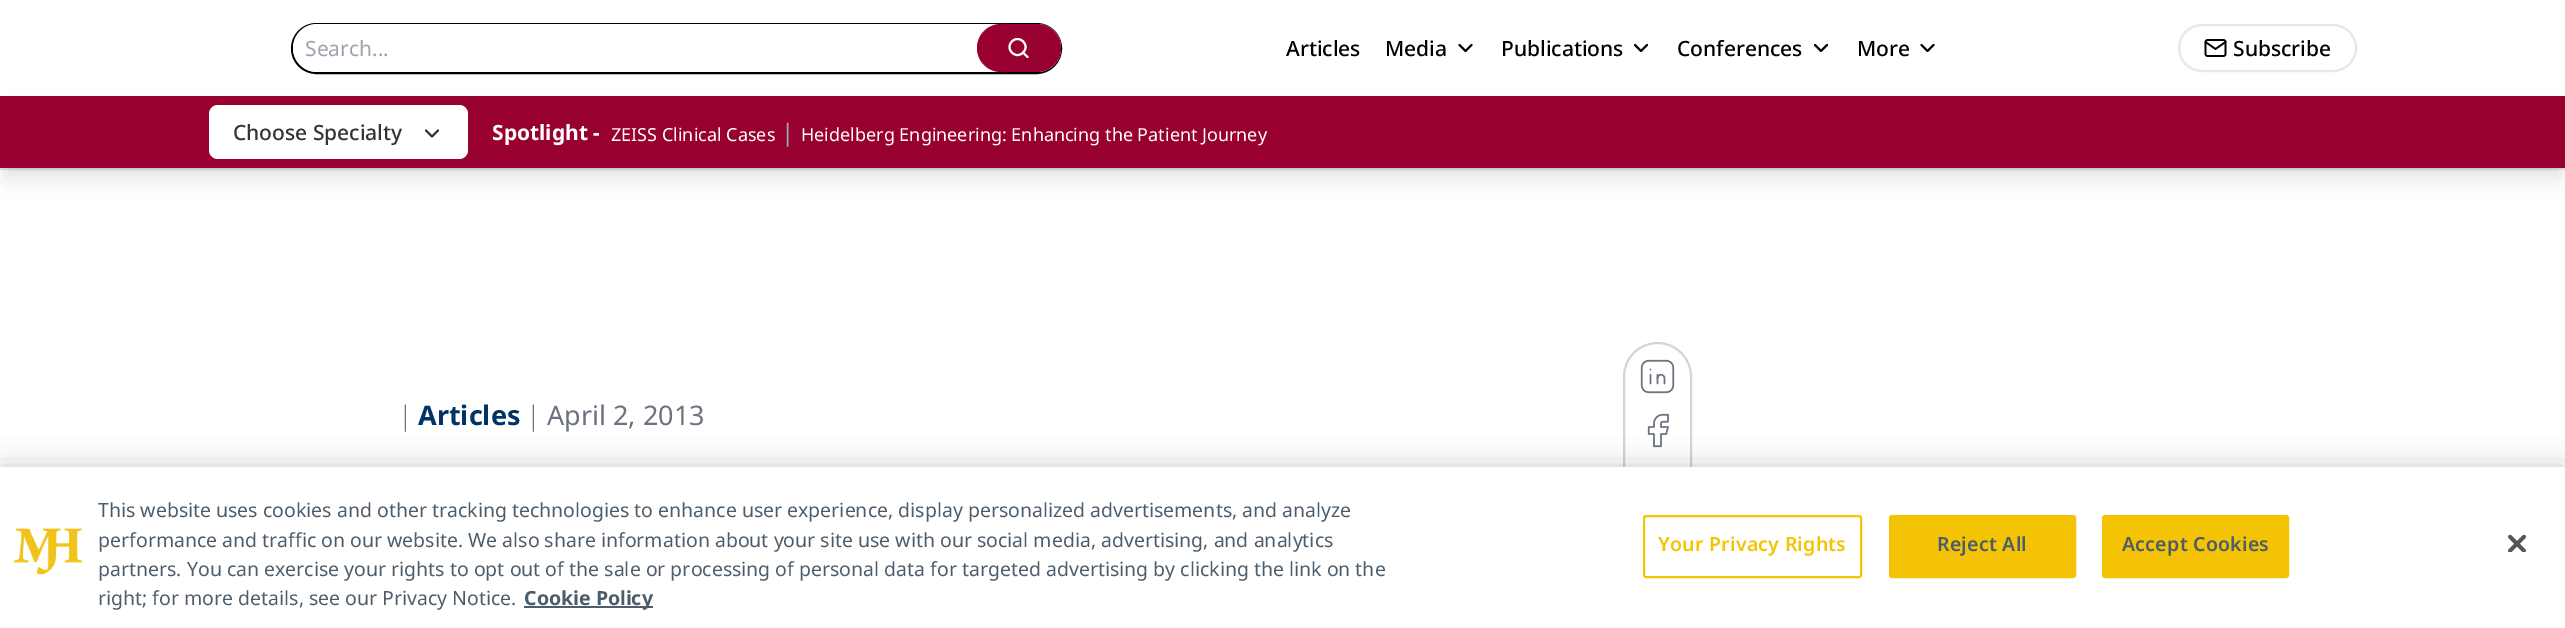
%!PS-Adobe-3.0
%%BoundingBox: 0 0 2565 628
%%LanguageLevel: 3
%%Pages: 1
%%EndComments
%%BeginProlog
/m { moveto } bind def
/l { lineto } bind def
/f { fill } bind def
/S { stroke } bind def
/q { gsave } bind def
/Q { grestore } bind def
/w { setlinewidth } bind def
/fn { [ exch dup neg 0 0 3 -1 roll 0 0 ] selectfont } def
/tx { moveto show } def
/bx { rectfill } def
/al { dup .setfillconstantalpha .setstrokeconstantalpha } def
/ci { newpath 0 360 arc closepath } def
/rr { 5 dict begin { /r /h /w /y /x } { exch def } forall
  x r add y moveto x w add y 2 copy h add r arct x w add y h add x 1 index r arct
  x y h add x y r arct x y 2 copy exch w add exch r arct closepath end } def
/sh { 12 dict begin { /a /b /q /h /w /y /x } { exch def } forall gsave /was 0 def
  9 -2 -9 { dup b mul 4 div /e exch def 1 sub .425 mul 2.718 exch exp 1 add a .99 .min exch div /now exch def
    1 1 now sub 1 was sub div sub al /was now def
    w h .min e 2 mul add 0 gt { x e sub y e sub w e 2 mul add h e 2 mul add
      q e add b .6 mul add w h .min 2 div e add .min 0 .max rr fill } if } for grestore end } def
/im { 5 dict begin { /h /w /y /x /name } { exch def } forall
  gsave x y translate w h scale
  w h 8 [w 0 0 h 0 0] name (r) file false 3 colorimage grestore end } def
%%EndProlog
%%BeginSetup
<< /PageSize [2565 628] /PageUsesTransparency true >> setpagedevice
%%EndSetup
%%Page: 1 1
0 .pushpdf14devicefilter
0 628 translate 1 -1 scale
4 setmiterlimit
1 setgray
0 0 2565 628 bx
0.898 0.906 0.922 setrgbcolor
0 168 2565 2 bx
0 setgray
2 w
292 24 769 49 24.5 rr S
1 setgray
293 24 768 48 24 rr f
/NotoSans-Regular 21 fn
0.612 0.639 0.686 setrgbcolor
(Search...) 305 56 tx
0.596 0.004 0.184 setrgbcolor
977 24 84 48 24 rr f
1 setgray
1017.5 47 8 ci S
1 setlinecap
1 setlinejoin
1027.5 57 m 1023 52.5 l S
/NotoSans-Medium 21 fn
0 setgray
(Articles) 1286 56 tx
(Media) 1385 56 tx
1459.5 45 m 1465.5 51 l 1471.5 45 l S
(Publications) 1501 56 tx
1635 45 m 1641 51 l 1647 45 l S
(Conferences) 1677 56 tx
1815 45 m 1821 51 l 1827 45 l S
(More) 1857 56 tx
1921.5 45 m 1927.5 51 l 1933.5 45 l S
0.898 0.906 0.922 setrgbcolor
0 setlinecap
0 setlinejoin
2179 25 177 46 23 rr S
(image0.raw) 2204 39 23 18 im
0 setgray
(Subscribe) 2233 56 tx
6 108 2553 60 0 4.5 0.1 sh
5 116 2556 63 0 11 0.1 sh
0.596 0.004 0.184 setrgbcolor
0 96 2565 72 bx
1 setgray
209 105 259 54 9 rr f
0.2 setgray
(Choose Specialty) 233 140 tx
1 setlinecap
1 setlinejoin
426 130.5 m 432 136.5 l 438 130.5 l S
/NotoSans-Bold 21 fn
1 setgray
(Spotlight -) 492 140 tx
/NotoSans-Regular 18 fn
(ZEISS Clinical Cases) 611 141 tx
/NotoSans-Regular 24 fn
0.612 0.639 0.686 setrgbcolor
(|) 781 141 tx
/NotoSans-Regular 18 fn
1 setgray
(Heidelberg Engineering: Enhancing the Patient Journey) 801 141 tx
/NotoSans-Light 27 fn
0.42 0.447 0.502 setrgbcolor
(|) 398 425 tx
/NotoSans-Bold 27 fn
0 0.2 0.4 setrgbcolor
(Articles) 418 425 tx
/NotoSans-Light 27 fn
0.42 0.447 0.502 setrgbcolor
(|) 526 425 tx
/NotoSans-Regular 27 fn
(April 2, 2013) 547 425 tx
0.82 0.835 0.859 setrgbcolor
0 setlinecap
0 setlinejoin
1624 343 67 283 33.5 rr S
(image1.raw) 1640 359 35 35 im
(image2.raw) 1647 413 22 35 im
0 setgray
0 467 2565 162 0 13.5 0.2 sh
1 setgray
0 467 2565 161 bx
(image3.raw) 13 528 70 47 im
/NotoSans-Regular 19.5 fn
0.298 0.361 0.42 setrgbcolor
(This website uses cookies and other tracking technologies to enhance user experience, display personalized advertisements, and analyze) 98 517 tx
(performance and traffic on our website. We also share information about your site use with our social media, advertising, and analytics) 98 547 tx
(partners. You can exercise your rights to opt out of the sale or processing of personal data for targeted advertising by clicking the link on the) 98 576 tx
(right; for more details, see our Privacy Notice.) 98 605 tx
524 606 129 2 bx
/NotoSans-Bold 19.5 fn
(Cookie Policy) 524 605 tx
0.957 0.769 0.016 setrgbcolor
1644 516 217 61 2 rr S
/NotoSans-SemiBold 19.5 fn
1658 551 m 0.25 0 (Your Privacy Rights) ashow
1890 516 185 61 2 rr q f Q
S
0.298 0.361 0.42 setrgbcolor
1937 551 m 0.25 0 (Reject All) ashow
0.957 0.769 0.016 setrgbcolor
2103 516 185 61 2 rr q f Q
S
0.298 0.361 0.42 setrgbcolor
2122 551 m 0.25 0 (Accept Cookies) ashow
(image4.raw) 2508 534 18 18 im
.poppdf14devicefilter showpage
%%EOF
